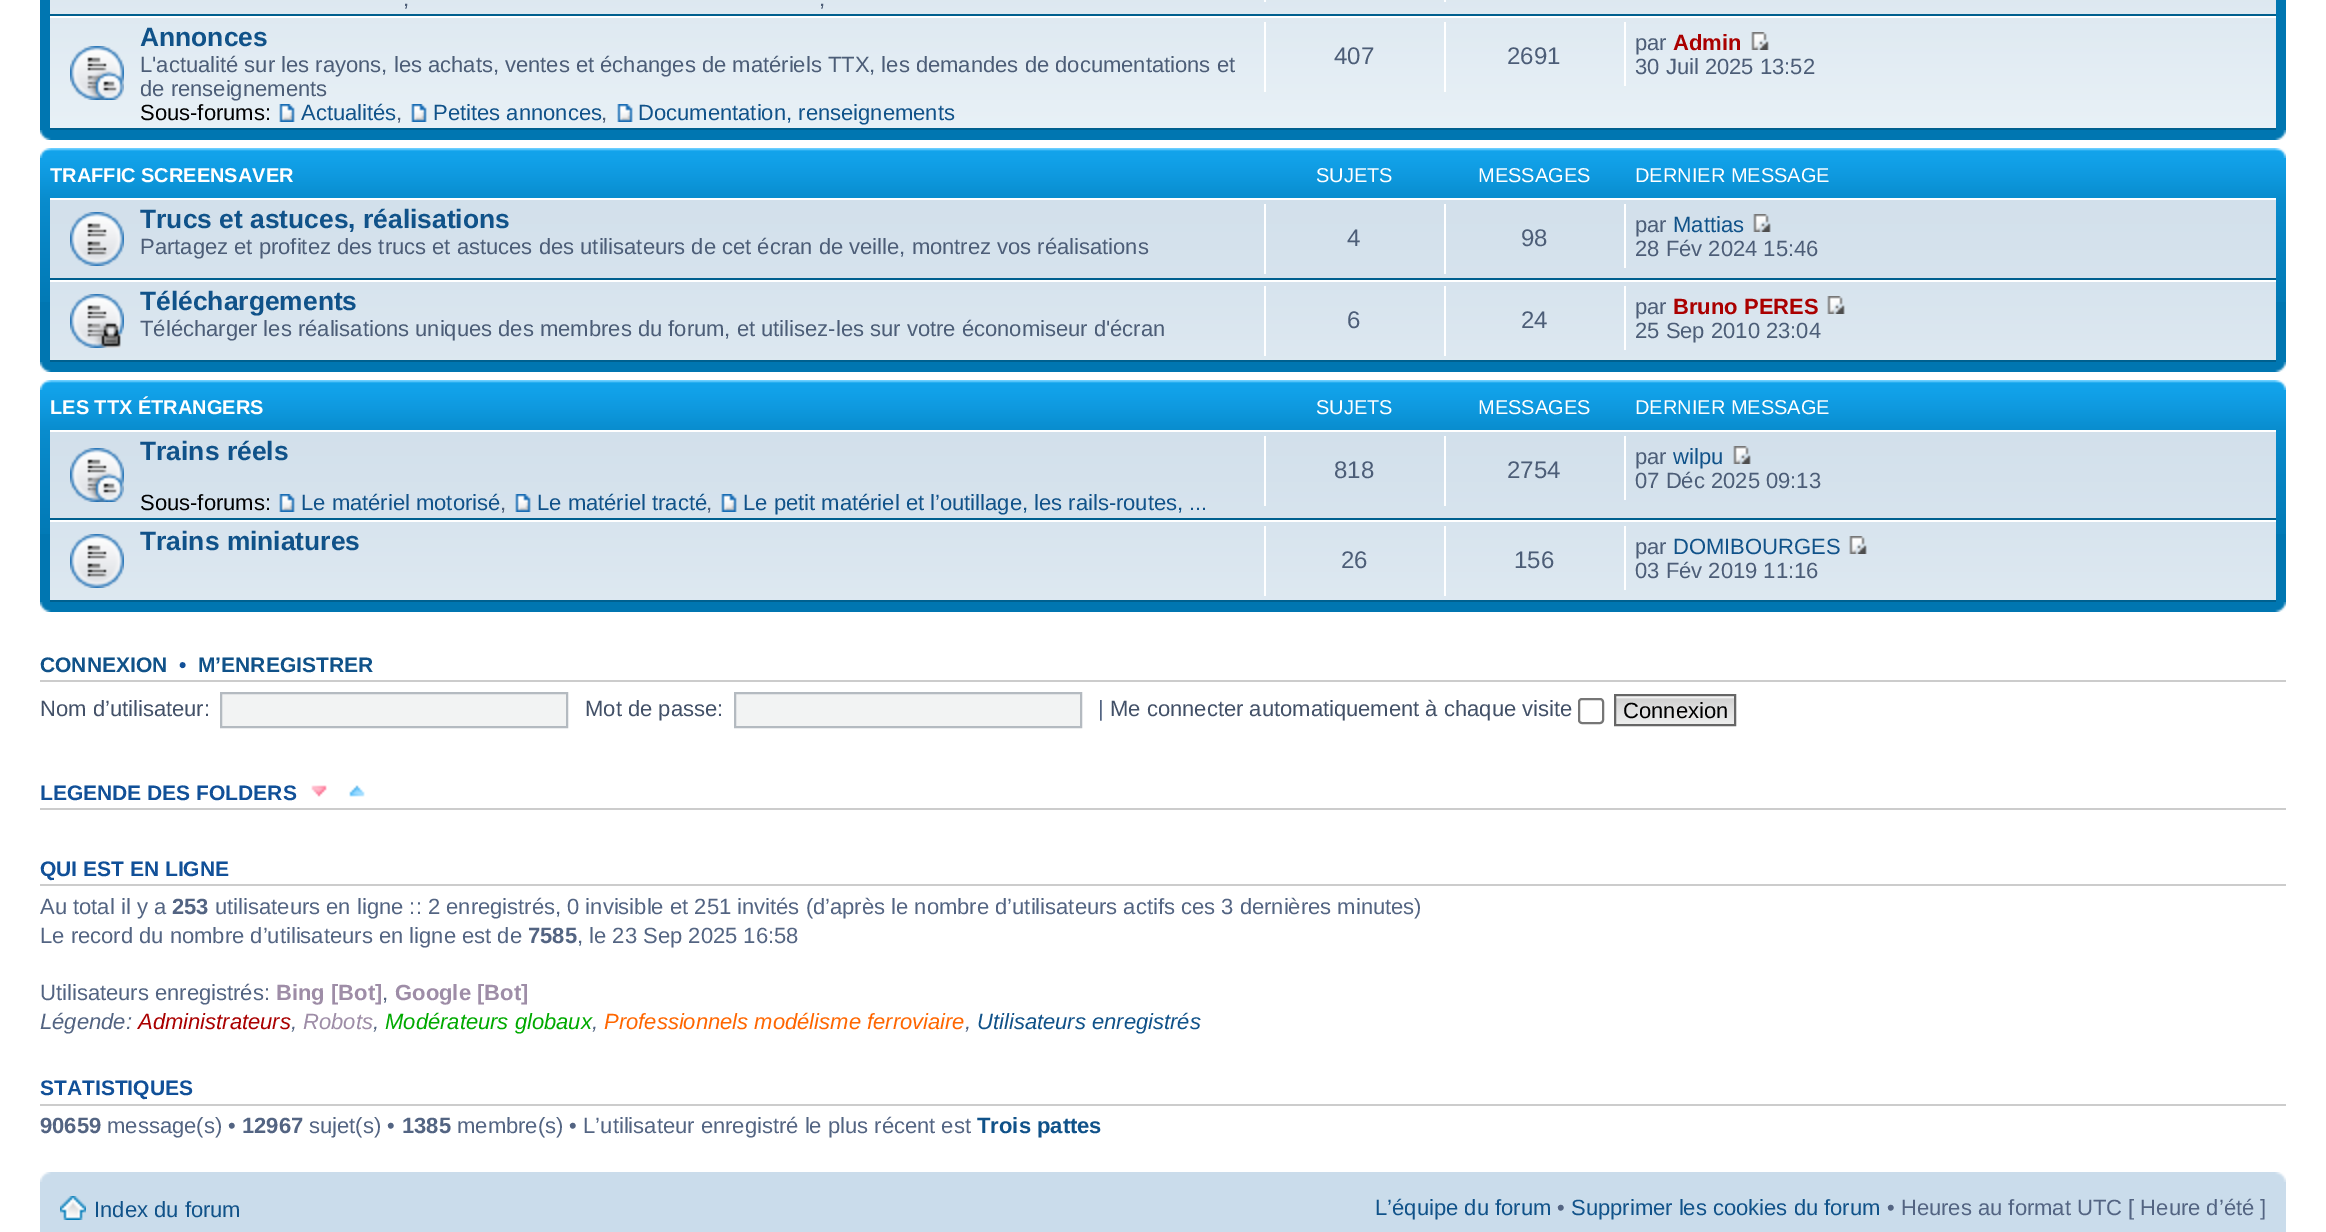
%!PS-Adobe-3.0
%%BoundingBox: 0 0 2326 1232
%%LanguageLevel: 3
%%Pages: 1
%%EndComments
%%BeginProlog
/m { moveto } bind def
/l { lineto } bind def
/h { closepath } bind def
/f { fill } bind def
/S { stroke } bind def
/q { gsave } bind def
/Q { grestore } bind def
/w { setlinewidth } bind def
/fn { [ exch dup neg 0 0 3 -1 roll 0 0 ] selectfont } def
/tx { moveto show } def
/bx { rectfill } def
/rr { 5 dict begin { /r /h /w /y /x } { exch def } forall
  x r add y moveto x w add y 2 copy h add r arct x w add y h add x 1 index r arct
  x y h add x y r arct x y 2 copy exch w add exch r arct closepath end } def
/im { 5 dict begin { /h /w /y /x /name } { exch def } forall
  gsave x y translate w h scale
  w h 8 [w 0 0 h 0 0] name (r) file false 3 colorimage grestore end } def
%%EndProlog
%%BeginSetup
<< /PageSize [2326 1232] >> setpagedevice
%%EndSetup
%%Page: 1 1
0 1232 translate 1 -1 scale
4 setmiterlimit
1 setgray
0 0 2326 1232 bx
0 0.463 0.694 setrgbcolor
40 0 2246 140 bx
(image0.raw) 50 0 2226 128 im
0 0.376 0.561 setrgbcolor
50 14 2226 2 bx
1 setgray
1264 0 2 2 bx
1444 0 2 2 bx
/LiberationSans-Regular 22 fn
0.298 0.365 0.467 setrgbcolor
(,) 403 6 tx
(,) 819 6 tx
1 setgray
50 16 2226 2 bx
0 0.376 0.561 setrgbcolor
50 128 2226 2 bx
(image1.raw) 70 46 54 54 im
/LiberationSans-Bold 26.4 fn
0.063 0.322 0.537 setrgbcolor
(Annonces) 140 46 tx
/LiberationSans-Regular 22 fn
0.298 0.365 0.467 setrgbcolor
(L'actualité sur les rayons, les achats, ventes et échanges de matériels TTX, les demandes de documentations et) 140 72 tx
(de renseignements) 140 96 tx
0 setgray
(Sous-forums:) 140 120 tx
(image2.raw) 279 104 16 18 im
0.063 0.322 0.537 setrgbcolor
(Actualités) 301 120 tx
0.298 0.365 0.467 setrgbcolor
(,) 396 120 tx
(image2.raw) 411 104 16 18 im
0.063 0.322 0.537 setrgbcolor
(Petites annonces) 433 120 tx
0.298 0.365 0.467 setrgbcolor
(,) 601 120 tx
(image2.raw) 617 104 16 18 im
0.063 0.322 0.537 setrgbcolor
(Documentation, renseignements) 638 120 tx
1 setgray
1264 22 2 70 bx
/LiberationSans-Regular 24 fn
0.298 0.365 0.467 setrgbcolor
(407) 1334 64 tx
1 setgray
1444 22 2 70 bx
0.298 0.365 0.467 setrgbcolor
(2691) 1507 64 tx
1 setgray
1624 22 2 64 bx
/LiberationSans-Regular 22 fn
0.298 0.365 0.467 setrgbcolor
(par) 1635 50 tx
/LiberationSans-Bold 22 fn
0.667 0 0 setrgbcolor
(Admin) 1673 50 tx
(image3.raw) 1751 32 18 18 im
/LiberationSans-Regular 22 fn
0.298 0.365 0.467 setrgbcolor
(30 Juil 2025 13:52) 1635 74 tx
(image4.raw) 40 130 11 10 im
(image5.raw) 2275 130 11 10 im
0 0.463 0.694 setrgbcolor
40 302 2246 70 bx
(image6.raw) 40 148 2246 154 im
(image7.raw) 40 148 11 10 im
(image8.raw) 2275 148 11 10 im
/LiberationSans-Bold 20 fn
1 setgray
(TRAFFIC SCREENSAVER) 50 182 tx
/LiberationSans-Regular 20 fn
(SUJETS) 1316 182 tx
(MESSAGES) 1478 182 tx
(DERNIER MESSAGE) 1635 182 tx
(image9.raw) 50 200 2226 160 im
50 198 2226 2 bx
0 0.376 0.561 setrgbcolor
50 278 2226 2 bx
(image10.raw) 70 212 54 54 im
/LiberationSans-Bold 26.4 fn
0.063 0.322 0.537 setrgbcolor
(Trucs et astuces, réalisations) 140 228 tx
/LiberationSans-Regular 22 fn
0.298 0.365 0.467 setrgbcolor
(Partagez et profitez des trucs et astuces des utilisateurs de cet écran de veille, montrez vos réalisations) 140 254 tx
1 setgray
1264 204 2 70 bx
/LiberationSans-Regular 24 fn
0.298 0.365 0.467 setrgbcolor
(4) 1347 246 tx
1 setgray
1444 204 2 70 bx
0.298 0.365 0.467 setrgbcolor
(98) 1521 246 tx
1 setgray
1624 204 2 64 bx
/LiberationSans-Regular 22 fn
0.298 0.365 0.467 setrgbcolor
(par) 1635 232 tx
0.063 0.322 0.537 setrgbcolor
(Mattias) 1673 232 tx
(image11.raw) 1753 214 18 18 im
0.298 0.365 0.467 setrgbcolor
(28 Fév 2024 15:46) 1635 256 tx
1 setgray
50 280 2226 2 bx
0 0.376 0.561 setrgbcolor
50 360 2226 2 bx
(image12.raw) 70 294 54 54 im
/LiberationSans-Bold 26.4 fn
0.063 0.322 0.537 setrgbcolor
(Téléchargements) 140 310 tx
/LiberationSans-Regular 22 fn
0.298 0.365 0.467 setrgbcolor
(Télécharger les réalisations uniques des membres du forum, et utilisez-les sur votre économiseur d'écran) 140 336 tx
1 setgray
1264 286 2 70 bx
/LiberationSans-Regular 24 fn
0.298 0.365 0.467 setrgbcolor
(6) 1347 328 tx
1 setgray
1444 286 2 70 bx
0.298 0.365 0.467 setrgbcolor
(24) 1521 328 tx
1 setgray
1624 286 2 64 bx
/LiberationSans-Regular 22 fn
0.298 0.365 0.467 setrgbcolor
(par) 1635 314 tx
/LiberationSans-Bold 22 fn
0.667 0 0 setrgbcolor
(Bruno PERES) 1673 314 tx
(image13.raw) 1827 296 18 18 im
/LiberationSans-Regular 22 fn
0.298 0.365 0.467 setrgbcolor
(25 Sep 2010 23:04) 1635 338 tx
(image4.raw) 40 362 11 10 im
(image5.raw) 2275 362 11 10 im
0 0.463 0.694 setrgbcolor
40 534 2246 78 bx
(image6.raw) 40 380 2246 154 im
(image7.raw) 40 380 11 10 im
(image8.raw) 2275 380 11 10 im
/LiberationSans-Bold 20 fn
1 setgray
(LES TTX ÉTRANGERS) 50 414 tx
/LiberationSans-Regular 20 fn
(SUJETS) 1316 414 tx
(MESSAGES) 1478 414 tx
(DERNIER MESSAGE) 1635 414 tx
(image14.raw) 50 432 2226 168 im
50 430 2226 2 bx
0 0.376 0.561 setrgbcolor
50 518 2226 2 bx
(image15.raw) 70 448 54 54 im
/LiberationSans-Bold 26.4 fn
0.063 0.322 0.537 setrgbcolor
(Trains réels) 140 460 tx
/LiberationSans-Regular 22 fn
0 setgray
(Sous-forums:) 140 510 tx
(image16.raw) 279 494 16 18 im
0.063 0.322 0.537 setrgbcolor
(Le matériel motorisé) 301 510 tx
0.298 0.365 0.467 setrgbcolor
(,) 500 510 tx
(image16.raw) 515 494 16 18 im
0.063 0.322 0.537 setrgbcolor
(Le matériel tracté) 537 510 tx
0.298 0.365 0.467 setrgbcolor
(,) 706 510 tx
(image16.raw) 721 494 16 18 im
0.063 0.322 0.537 setrgbcolor
(Le petit matériel et l’outillage, les rails-routes, ...) 743 510 tx
1 setgray
1264 436 2 70 bx
/LiberationSans-Regular 24 fn
0.298 0.365 0.467 setrgbcolor
(818) 1334 478 tx
1 setgray
1444 436 2 70 bx
0.298 0.365 0.467 setrgbcolor
(2754) 1507 478 tx
1 setgray
1624 436 2 64 bx
/LiberationSans-Regular 22 fn
0.298 0.365 0.467 setrgbcolor
(par) 1635 464 tx
0.063 0.322 0.537 setrgbcolor
(wilpu) 1673 464 tx
(image11.raw) 1733 446 18 18 im
0.298 0.365 0.467 setrgbcolor
(07 Déc 2025 09:13) 1635 488 tx
1 setgray
50 520 2226 2 bx
0 0.376 0.561 setrgbcolor
50 600 2226 2 bx
(image17.raw) 70 534 54 54 im
/LiberationSans-Bold 26.4 fn
0.063 0.322 0.537 setrgbcolor
(Trains miniatures) 140 550 tx
1 setgray
1264 526 2 70 bx
/LiberationSans-Regular 24 fn
0.298 0.365 0.467 setrgbcolor
(26) 1341 568 tx
1 setgray
1444 526 2 70 bx
0.298 0.365 0.467 setrgbcolor
(156) 1514 568 tx
1 setgray
1624 526 2 64 bx
/LiberationSans-Regular 22 fn
0.298 0.365 0.467 setrgbcolor
(par) 1635 554 tx
0.063 0.322 0.537 setrgbcolor
(DOMIBOURGES) 1673 554 tx
(image18.raw) 1849 536 18 18 im
0.298 0.365 0.467 setrgbcolor
(03 Fév 2019 11:16) 1635 578 tx
(image4.raw) 40 602 11 10 im
(image5.raw) 2275 602 11 10 im
0.8 setgray
40 680 2246 2 bx
/LiberationSans-Bold 21 fn
0.063 0.322 0.537 setrgbcolor
(CONNEXION) 40 672 tx
0.067 0.314 0.596 setrgbcolor
(•) 179 672 tx
0.063 0.322 0.537 setrgbcolor
(M’ENREGISTRER) 198 672 tx
/LiberationSans-Regular 22 fn
0.259 0.314 0.404 setrgbcolor
(Nom d’utilisateur:) 40 716 tx
0.949 0.953 0.953 setrgbcolor
221 693 m 567 693 l 567 727 l 221 727 l h q f Q
0.706 0.729 0.753 setrgbcolor
2 w
S
0.259 0.314 0.404 setrgbcolor
(Mot de passe:) 585 716 tx
0.949 0.953 0.953 setrgbcolor
735 693 m 1081 693 l 1081 727 l 735 727 l h q f Q
0.706 0.729 0.753 setrgbcolor
S
0.325 0.392 0.51 setrgbcolor
(|) 1098 716 tx
0.259 0.314 0.404 setrgbcolor
(Me connecter automatiquement à chaque visite) 1110 716 tx
0.463 setgray
1579 699 24 24 3 rr S
(image19.raw) 1616 696 118 28 im
0.4 setgray
1615 695 120 30 rectstroke
0 setgray
(Connexion) 1623 718 tx
0.8 setgray
40 808 2246 2 bx
/LiberationSans-Bold 21 fn
0.067 0.314 0.596 setrgbcolor
(LEGENDE DES FOLDERS) 40 800 tx
(image20.raw) 311 785 16 12 im
(image21.raw) 349 785 16 12 im
0.8 setgray
40 884 2246 2 bx
0.067 0.314 0.596 setrgbcolor
(QUI EST EN LIGNE) 40 876 tx
/LiberationSans-Regular 22 fn
0.325 0.392 0.51 setrgbcolor
(Au total il y a) 40 914 tx
/LiberationSans-Bold 22 fn
(253) 172 914 tx
/LiberationSans-Regular 22 fn
(utilisateurs en ligne :: 2 enregistrés, 0 invisible et 251 invités \(d’après le nombre d’utilisateurs actifs ces 3 dernières minutes\)) 215 914 tx
(Le record du nombre d’utilisateurs en ligne est de) 40 943 tx
/LiberationSans-Bold 22 fn
(7585) 528 943 tx
/LiberationSans-Regular 22 fn
(, le 23 Sep 2025 16:58) 577 943 tx
(Utilisateurs enregistrés:) 40 1000 tx
/LiberationSans-Bold 22 fn
0.62 0.553 0.655 setrgbcolor
(Bing [Bot]) 276 1000 tx
/LiberationSans-Regular 22 fn
0.325 0.392 0.51 setrgbcolor
(,) 382 1000 tx
/LiberationSans-Bold 22 fn
0.62 0.553 0.655 setrgbcolor
(Google [Bot]) 395 1000 tx
/LiberationSans-Italic 22 fn
0.325 0.392 0.51 setrgbcolor
(Légende:) 40 1029 tx
0.667 0 0 setrgbcolor
(Administrateurs) 138 1029 tx
0.325 0.392 0.51 setrgbcolor
(,) 291 1029 tx
0.62 0.553 0.655 setrgbcolor
(Robots) 303 1029 tx
0.325 0.392 0.51 setrgbcolor
(,) 373 1029 tx
0 0.667 0 setrgbcolor
(Modérateurs globaux) 385 1029 tx
0.325 0.392 0.51 setrgbcolor
(,) 592 1029 tx
1 0.4 0 setrgbcolor
(Professionnels modélisme ferroviaire) 604 1029 tx
0.325 0.392 0.51 setrgbcolor
(,) 965 1029 tx
0.063 0.322 0.537 setrgbcolor
(Utilisateurs enregistrés) 977 1029 tx
0.8 setgray
40 1104 2246 2 bx
/LiberationSans-Bold 21 fn
0.067 0.314 0.596 setrgbcolor
(STATISTIQUES) 40 1095 tx
/LiberationSans-Bold 22 fn
0.325 0.392 0.51 setrgbcolor
(90659) 40 1133 tx
/LiberationSans-Regular 22 fn
(message\(s\) •) 107 1133 tx
/LiberationSans-Bold 22 fn
(12967) 242 1133 tx
/LiberationSans-Regular 22 fn
(sujet\(s\) •) 309 1133 tx
/LiberationSans-Bold 22 fn
(1385) 402 1133 tx
/LiberationSans-Regular 22 fn
(membre\(s\) • L’utilisateur enregistré le plus récent est) 457 1133 tx
/LiberationSans-Bold 22 fn
0.063 0.322 0.537 setrgbcolor
(Trois pattes) 977 1133 tx
0.792 0.863 0.922 setrgbcolor
40 1172 2246 60 bx
(image22.raw) 40 1172 11 10 im
(image23.raw) 2275 1172 11 10 im
(image24.raw) 60 1196 26 24 im
/LiberationSans-Regular 22 fn
0.063 0.322 0.537 setrgbcolor
(Index du forum) 94 1217 tx
(L’équipe du forum) 1375 1215 tx
0.325 0.392 0.51 setrgbcolor
(•) 1557 1215 tx
0.063 0.322 0.537 setrgbcolor
(Supprimer les cookies du forum) 1571 1215 tx
0.325 0.392 0.51 setrgbcolor
(• Heures au format UTC [ Heure d’été ]) 1887 1215 tx
showpage
%%EOF
